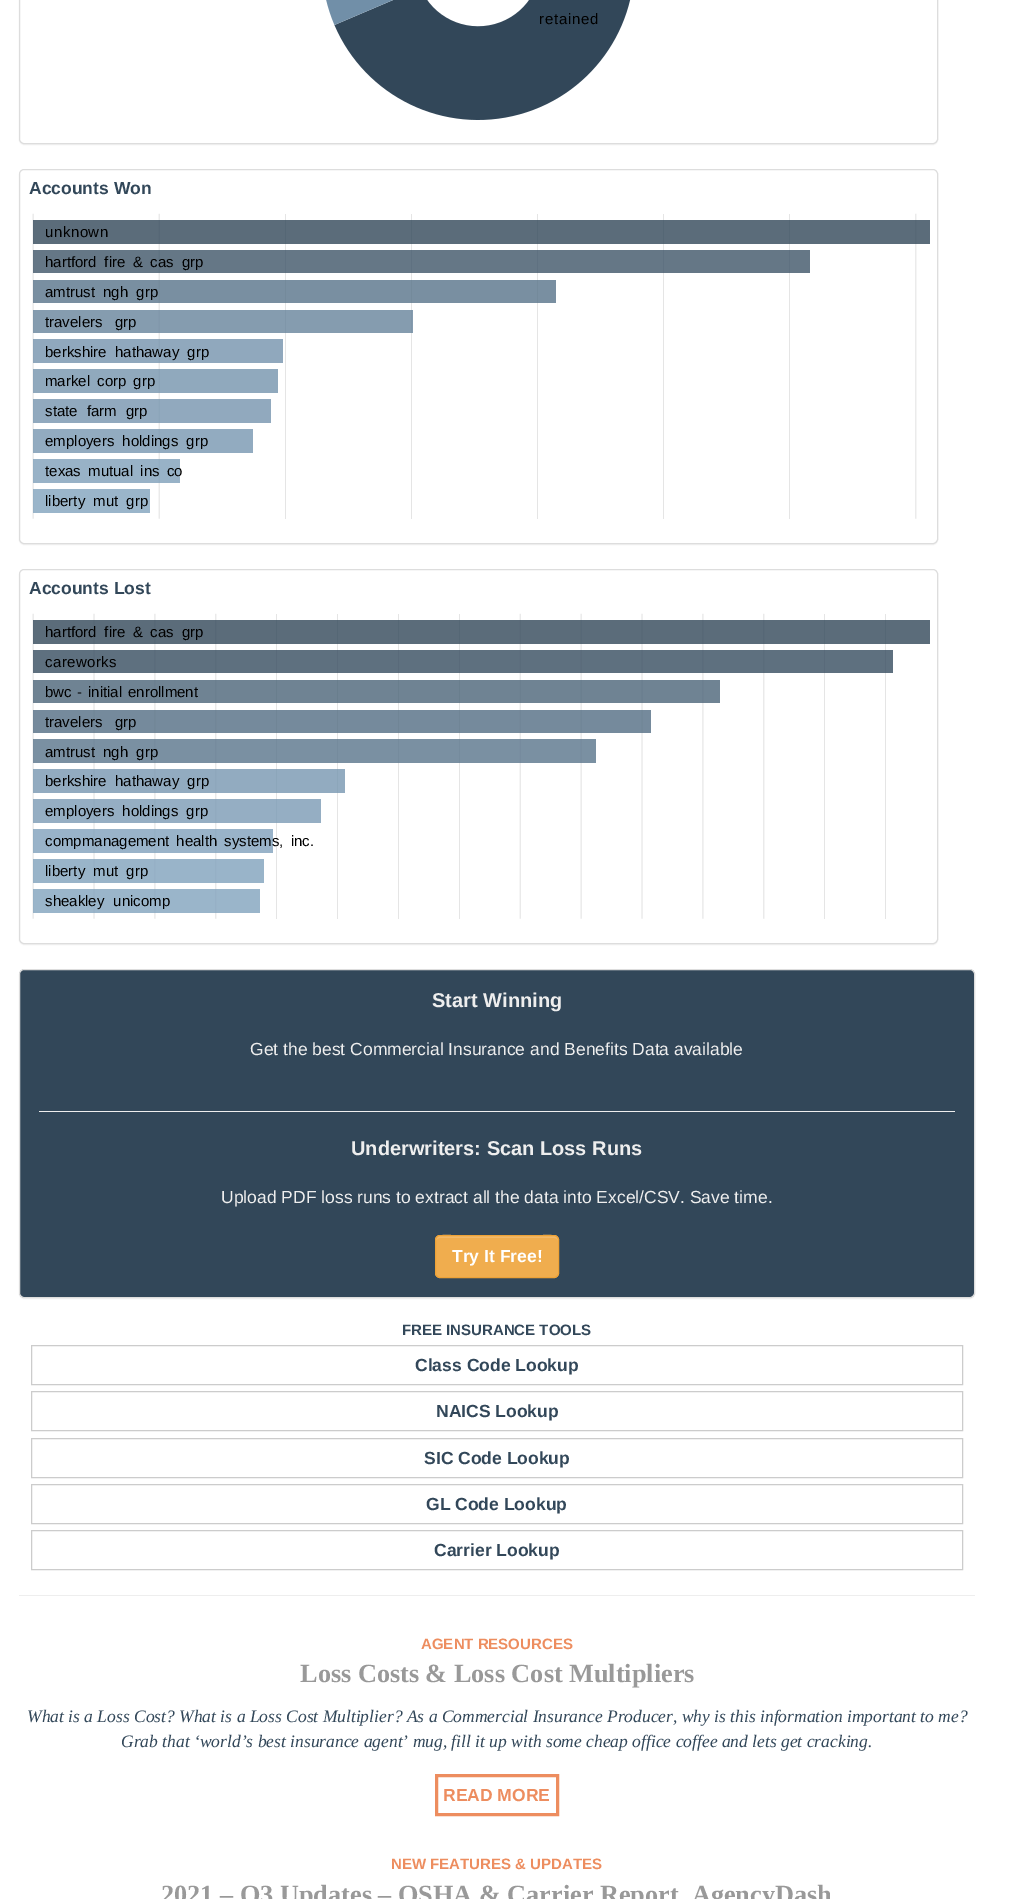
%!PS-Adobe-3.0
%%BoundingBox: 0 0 1012 1899
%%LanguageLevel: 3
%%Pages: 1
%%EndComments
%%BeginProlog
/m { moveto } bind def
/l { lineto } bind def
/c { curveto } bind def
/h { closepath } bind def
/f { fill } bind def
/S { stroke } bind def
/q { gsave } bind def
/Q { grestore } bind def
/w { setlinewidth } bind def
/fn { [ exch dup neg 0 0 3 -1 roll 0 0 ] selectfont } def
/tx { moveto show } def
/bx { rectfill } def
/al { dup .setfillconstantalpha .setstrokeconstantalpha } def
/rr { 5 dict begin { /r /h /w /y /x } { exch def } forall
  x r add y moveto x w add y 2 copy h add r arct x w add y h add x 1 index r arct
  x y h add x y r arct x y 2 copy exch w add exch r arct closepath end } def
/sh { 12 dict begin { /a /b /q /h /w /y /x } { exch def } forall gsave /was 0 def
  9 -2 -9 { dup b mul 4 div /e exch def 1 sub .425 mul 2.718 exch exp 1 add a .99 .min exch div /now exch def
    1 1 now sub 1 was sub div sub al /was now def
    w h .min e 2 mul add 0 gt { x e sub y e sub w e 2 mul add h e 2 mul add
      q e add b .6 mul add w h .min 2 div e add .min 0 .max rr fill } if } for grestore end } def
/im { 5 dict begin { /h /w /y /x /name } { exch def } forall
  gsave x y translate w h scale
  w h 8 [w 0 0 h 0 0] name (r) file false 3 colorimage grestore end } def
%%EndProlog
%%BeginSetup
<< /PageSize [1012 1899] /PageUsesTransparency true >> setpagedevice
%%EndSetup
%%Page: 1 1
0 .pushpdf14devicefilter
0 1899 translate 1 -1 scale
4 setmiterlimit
1 setgray
0 0 1012 1899 bx
0 setgray
19 -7 919 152 5 0.5 0.05 sh
1 setgray
19.5 -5.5 918 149 4.5 rr q f Q
0.867 setgray
S
(image0.raw) 326 0 305 120 im
/LiberationSans-Regular 15 fn
0 setgray
539 24 m 0.75 0 (retained) ashow
19 170 919 375 5 0.5 0.05 sh
1 setgray
19.5 169.5 918 374 4.5 rr q f Q
0.867 setgray
S
/LiberationSans-Bold 17.5 fn
0.196 0.278 0.349 setrgbcolor
(Accounts Won) 29 194 tx
(image1.raw) 32 213 898 306 im
/LiberationSans-Regular 15 fn
0 setgray
45 237 m 0.5 0 (unknown) ashow
45 267 m 3.5 0 32 (hartford fire & cas grp) widthshow
45 297 m 4 0 32 (amtrust ngh grp) widthshow
45 327 m 8 0 32 (travelers grp) widthshow
45 357 m 4 0 32 (berkshire hathaway grp) widthshow
45 386 m 3 0 32 (markel corp grp) widthshow
45 416 m 5 0 32 (state farm grp) widthshow
45 446 m 4 0 32 (employers holdings grp) widthshow
45 476 m 3 0 32 (texas mutual ins co) widthshow
45 506 m 4 0 32 (liberty mut grp) widthshow
19 570 919 375 5 0.5 0.05 sh
1 setgray
19.5 569.5 918 374 4.5 rr q f Q
0.867 setgray
S
/LiberationSans-Bold 17.5 fn
0.196 0.278 0.349 setrgbcolor
(Accounts Lost) 29 594 tx
(image2.raw) 32 613 898 306 im
/LiberationSans-Regular 15 fn
0 setgray
45 637 m 3.5 0 32 (hartford fire & cas grp) widthshow
45 667 m 0.4 0 (careworks) ashow
45 697 m 1.5 0 32 (bwc - initial enrollment) widthshow
45 727 m 8 0 32 (travelers grp) widthshow
45 757 m 4 0 32 (amtrust ngh grp) widthshow
45 786 m 4 0 32 (berkshire hathaway grp) widthshow
45 816 m 4 0 32 (employers holdings grp) widthshow
45 846 m 3 0 32 (compmanagement health systems, inc.) widthshow
45 876 m 4 0 32 (liberty mut grp) widthshow
45 906 m 5 0 32 (sheakley unicomp) widthshow
19 970 956 329 5 0.5 0.05 sh
0.196 0.278 0.349 setrgbcolor
19.5 969.5 955 328 4.5 rr q f Q
0.867 setgray
S
/LiberationSans-Bold 20 fn
0.933 setgray
(Start Winning) 432 1007 tx
/LiberationSans-Regular 17.5 fn
(Get the best Commercial Insurance and Benefits Data available) 250 1055 tx
39 1111 916 1 bx
/LiberationSans-Bold 20 fn
(Underwriters: Scan Loss Runs) 351 1155 tx
/LiberationSans-Regular 17.5 fn
(Upload PDF loss runs to extract all the data into Excel/CSV. Save time.) 221 1203 tx
0.941 0.678 0.306 setrgbcolor
435 1235 124 43 5 rr f
0.949 0.725 0.412 setrgbcolor
440 1238 m 554 1238 l 556 1238 558 1239 558 1241 c 558 1231 538 1236 535 1236 c 459 1236 l 456 1236 436 1231 436 1241 c 436 1239 438 1238 440 1238 c h f
0.933 0.635 0.212 setrgbcolor
435.5 1235.5 123 42 4.5 rr S
/LiberationSans-Bold 17.5 fn
1 setgray
(Try It Free!) 452 1262 tx
/LiberationSans-Bold 15 fn
0.196 0.278 0.349 setrgbcolor
(FREE INSURANCE TOOLS) 402 1335 tx
0.8 setgray
31.5 1345.5 931 39 rectstroke
/LiberationSans-Bold 17.5 fn
0.196 0.278 0.349 setrgbcolor
(Class Code Lookup) 415 1371 tx
0.8 setgray
31.5 1391.5 931 39 rectstroke
0.196 0.278 0.349 setrgbcolor
(NAICS Lookup) 436 1417 tx
0.8 setgray
31.5 1438.5 931 39 rectstroke
0.196 0.278 0.349 setrgbcolor
(SIC Code Lookup) 424 1464 tx
0.8 setgray
31.5 1484.5 931 39 rectstroke
0.196 0.278 0.349 setrgbcolor
(GL Code Lookup) 426 1510 tx
0.8 setgray
31.5 1530.5 931 39 rectstroke
0.196 0.278 0.349 setrgbcolor
(Carrier Lookup) 434 1556 tx
0.933 setgray
19 1595 956 1 bx
/LiberationSans-Bold 15 fn
0.929 0.553 0.373 setrgbcolor
(AGENT RESOURCES) 421 1649 tx
/LiberationSerif-Bold 26.25 fn
0.6 setgray
(Loss Costs & Loss Cost Multipliers) 300 1682 tx
/LiberationSerif-Italic 17.5 fn
0.196 0.278 0.349 setrgbcolor
(What is a Loss Cost? What is a Loss Cost Multiplier? As a Commercial Insurance Producer, why is this information important to me?) 27 1722 tx
(Grab that ‘world’s best insurance agent’ mug, fill it up with some cheap office coffee and lets get cracking.) 121 1747 tx
0.929 0.553 0.373 setrgbcolor
3 w
436.5 1775.5 121 39 rectstroke
/LiberationSans-Bold 17.5 fn
(READ MORE) 443 1801 tx
/LiberationSans-Bold 15 fn
(NEW FEATURES & UPDATES) 391 1869 tx
/LiberationSerif-Bold 26.25 fn
0.6 setgray
(2021 – Q3 Updates – OSHA & Carrier Report, AgencyDash) 161 1903 tx
.poppdf14devicefilter showpage
%%EOF
